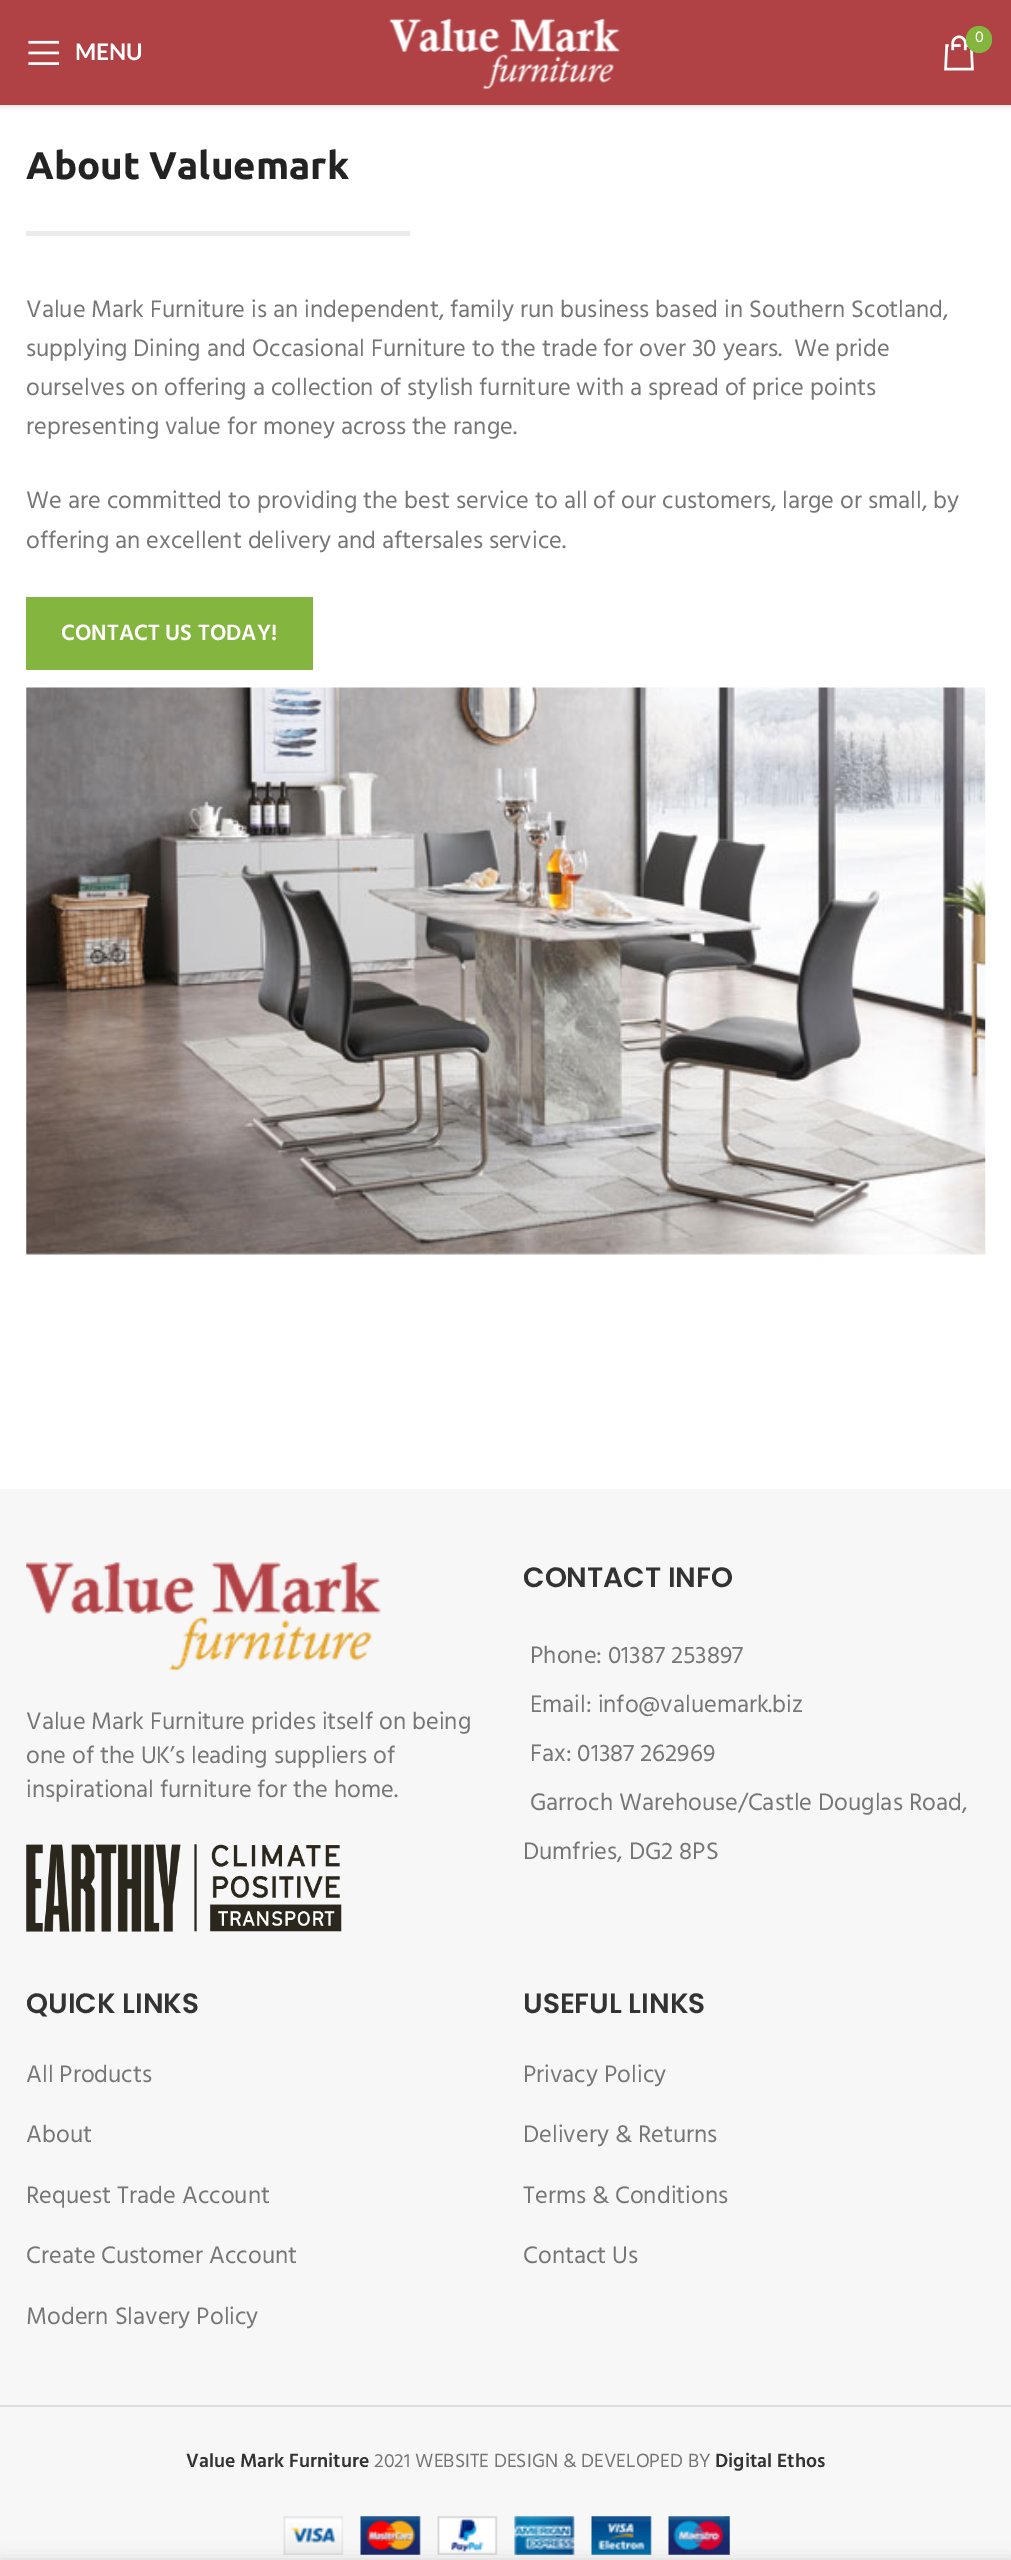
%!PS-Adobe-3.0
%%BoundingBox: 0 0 1011 2560
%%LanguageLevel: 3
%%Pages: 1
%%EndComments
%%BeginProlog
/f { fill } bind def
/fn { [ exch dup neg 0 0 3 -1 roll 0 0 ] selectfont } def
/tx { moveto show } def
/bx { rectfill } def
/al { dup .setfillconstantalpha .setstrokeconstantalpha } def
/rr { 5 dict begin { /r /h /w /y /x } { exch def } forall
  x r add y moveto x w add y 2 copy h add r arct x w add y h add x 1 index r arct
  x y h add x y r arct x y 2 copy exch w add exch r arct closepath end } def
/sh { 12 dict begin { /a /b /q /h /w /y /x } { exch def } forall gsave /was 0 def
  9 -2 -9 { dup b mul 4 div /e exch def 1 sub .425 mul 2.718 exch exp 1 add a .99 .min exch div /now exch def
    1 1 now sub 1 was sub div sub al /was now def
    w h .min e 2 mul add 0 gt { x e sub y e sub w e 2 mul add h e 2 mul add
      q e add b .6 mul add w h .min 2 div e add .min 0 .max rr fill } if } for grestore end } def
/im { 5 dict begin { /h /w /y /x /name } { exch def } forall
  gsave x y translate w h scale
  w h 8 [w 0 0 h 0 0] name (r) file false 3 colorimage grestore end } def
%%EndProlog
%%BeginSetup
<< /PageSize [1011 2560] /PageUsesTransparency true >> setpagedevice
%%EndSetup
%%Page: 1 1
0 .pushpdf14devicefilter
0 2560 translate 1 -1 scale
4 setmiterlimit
1 setgray
0 0 1011 2560 bx
0 setgray
0 2 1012 105 0 2.5 0.1 sh
0.69 0.259 0.271 setrgbcolor
0 0 1011 105 bx
(image0.raw) 389 18 231 72 im
(image1.raw) 944 35 30 36 im
0.518 0.71 0.247 setrgbcolor
966 26 26 27 13 rr f
/Hind-Regular 16 fn
1 setgray
(0) 975 42 tx
(image2.raw) 28 40 32 25 im
/Lato-Bold 22.75 fn
(MENU) 75 60 tx
/Ubuntu-Bold 38.5 fn
0.137 setgray
(About Valuemark) 26 179 tx
0.922 setgray
26 231 384 5 bx
/Hind-Regular 24.5 fn
0.463 setgray
(Value Mark Furniture is an independent, family run business based in Southern Scotland,) 26 317 tx
(supplying Dining and Occasional Furniture to the trade for over 30 years.  We pride) 26 356 tx
(ourselves on offering a collection of stylish furniture with a spread of price points) 26 395 tx
(representing value for money across the range.) 26 434 tx
(We are committed to providing the best service to all of our customers, large or small, by) 26 508 tx
(offering an excellent delivery and aftersales service.) 26 548 tx
0.518 0.71 0.247 setrgbcolor
26 597 287 73 bx
/Hind-SemiBold 22.75 fn
1 setgray
(CONTACT US TODAY!) 61 640 tx
(image3.raw) 26 687 960 568 im
0.969 setgray
0 1489 1011 1071 bx
(image4.raw) 26 1562 356 109 im
/Hind-Regular 24.5 fn
0.463 setgray
(Value Mark Furniture prides itself on being) 26 1729 tx
(one of the UK’s leading suppliers of) 26 1763 tx
(inspirational furniture for the home.) 26 1797 tx
(image5.raw) 26 1844 316 88 im
/Poppins-SemiBold 28 fn
0.2 setgray
(CONTACT INFO) 523 1587 tx
/Hind-Regular 24.5 fn
0.463 setgray
(Phone: 01387 253897) 530 1663 tx
(Email: info@valuemark.biz) 530 1712 tx
(Fax: 01387 262969) 530 1761 tx
(Garroch Warehouse/Castle Douglas Road,) 530 1810 tx
(Dumfries, DG2 8PS) 523 1859 tx
/Poppins-SemiBold 28 fn
0.2 setgray
(QUICK LINKS) 26 2013 tx
/Hind-Regular 24.5 fn
0.463 setgray
(All Products) 26 2082 tx
(About) 26 2142 tx
(Request Trade Account) 26 2203 tx
(Create Customer Account) 26 2263 tx
(Modern Slavery Policy) 26 2324 tx
/Poppins-SemiBold 28 fn
0.2 setgray
(USEFUL LINKS) 523 2013 tx
/Hind-Regular 24.5 fn
0.463 setgray
(Privacy Policy) 523 2082 tx
(Delivery & Returns) 523 2142 tx
(Terms & Conditions) 523 2203 tx
(Contact Us) 523 2263 tx
0.867 setgray
0 2405 1011 2 bx
/Hind-SemiBold 19.6 fn
0.2 setgray
(Value Mark Furniture) 186 2467 tx
/Hind-Regular 19.6 fn
0.463 setgray
(2021 WEBSITE DESIGN & DEVELOPED BY) 374 2467 tx
/Hind-SemiBold 19.6 fn
0.2 setgray
(Digital Ethos) 715 2467 tx
(image6.raw) 283 2516 447 39 im
0 setgray
0 2560 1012 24 0 8 0.14 sh
.poppdf14devicefilter showpage
%%EOF
